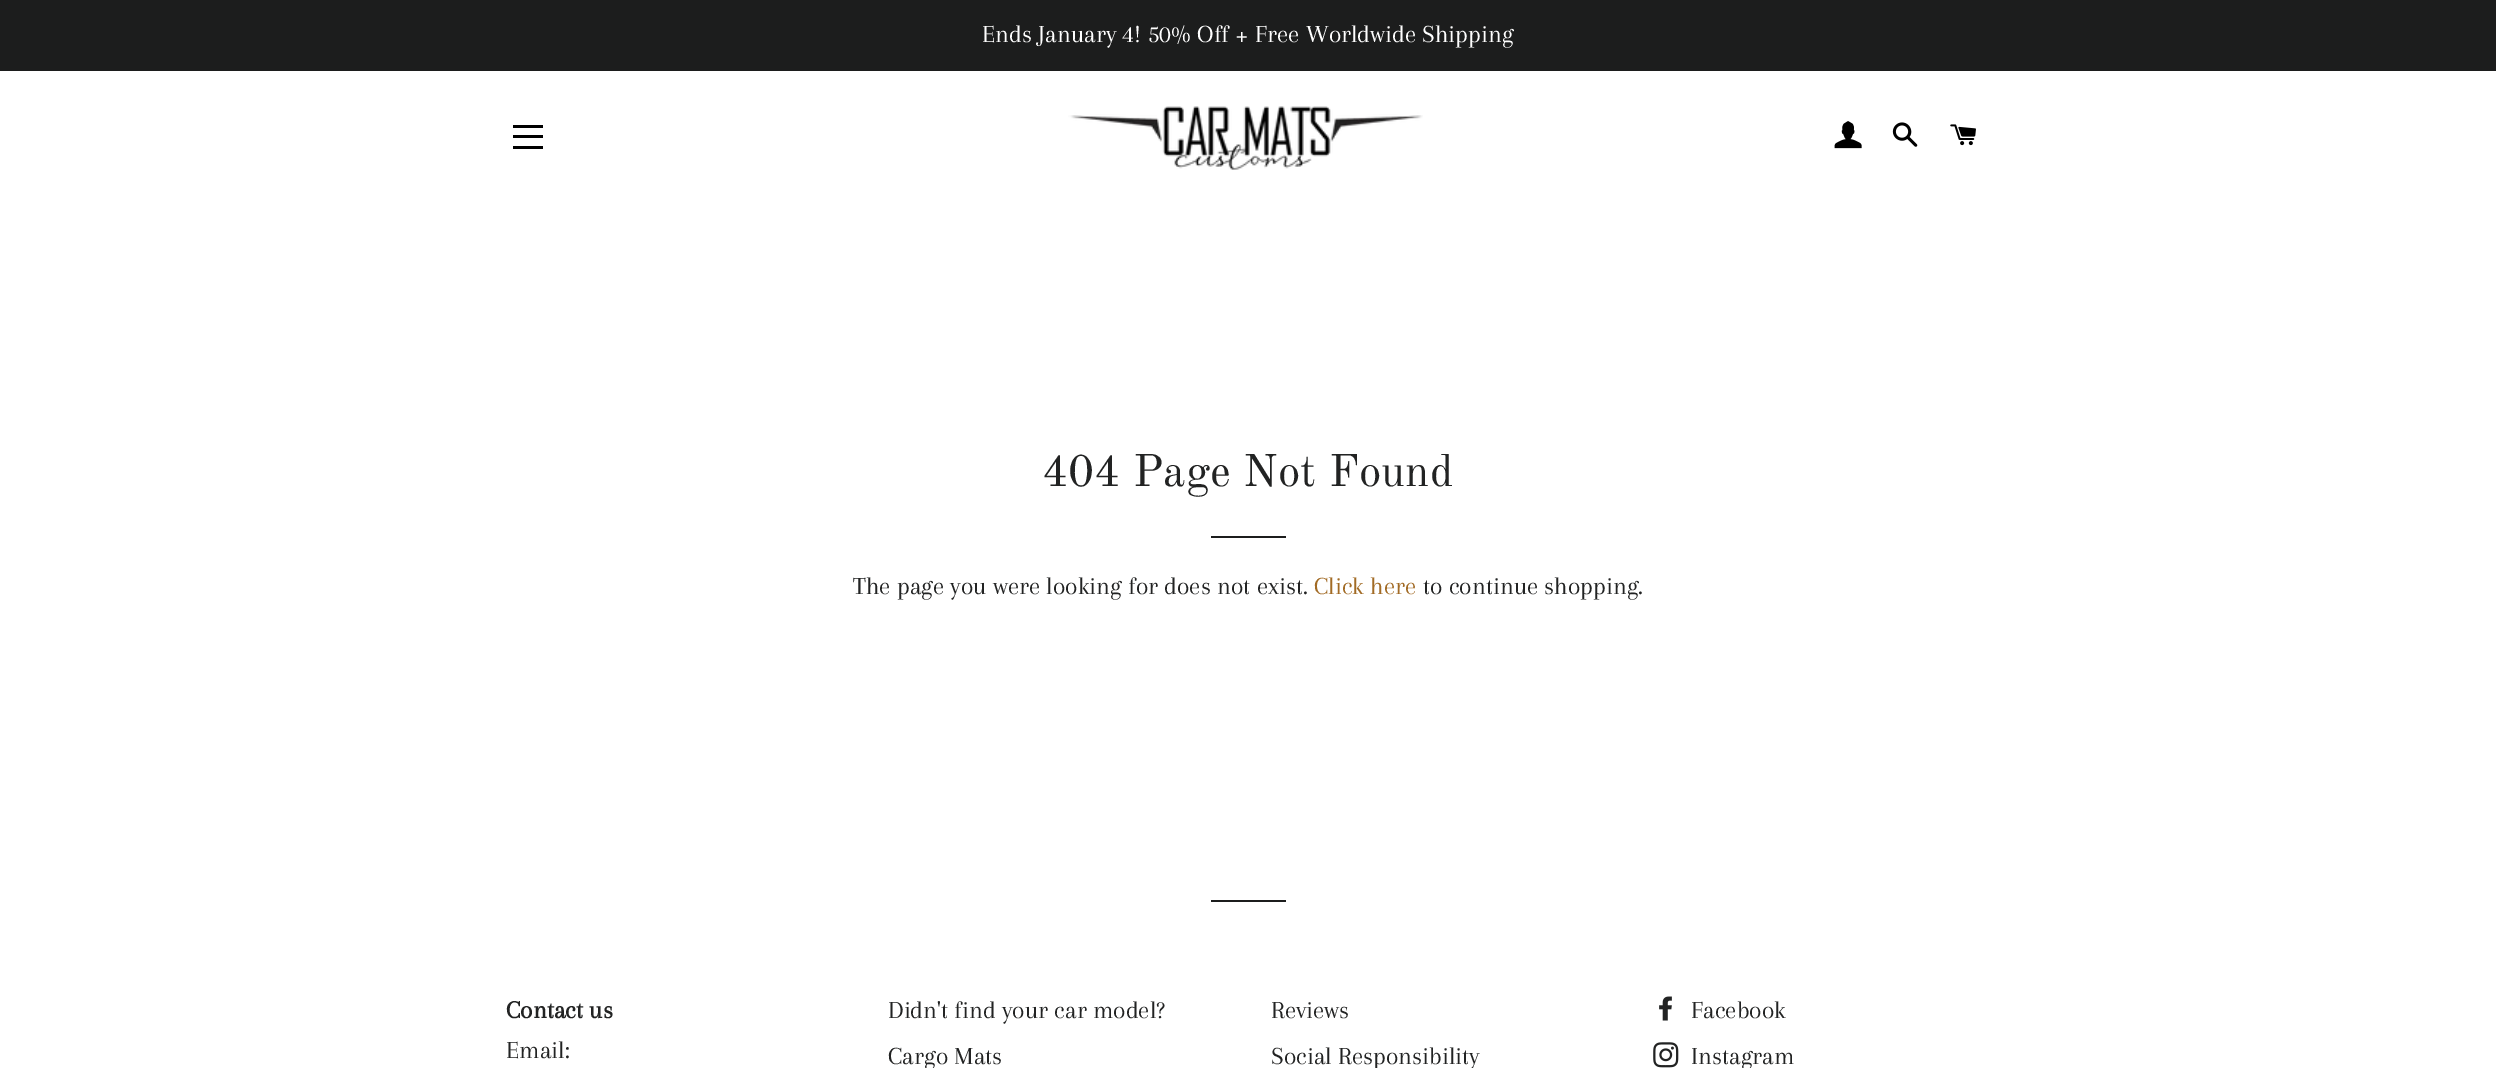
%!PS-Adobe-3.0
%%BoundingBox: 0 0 2496 1068
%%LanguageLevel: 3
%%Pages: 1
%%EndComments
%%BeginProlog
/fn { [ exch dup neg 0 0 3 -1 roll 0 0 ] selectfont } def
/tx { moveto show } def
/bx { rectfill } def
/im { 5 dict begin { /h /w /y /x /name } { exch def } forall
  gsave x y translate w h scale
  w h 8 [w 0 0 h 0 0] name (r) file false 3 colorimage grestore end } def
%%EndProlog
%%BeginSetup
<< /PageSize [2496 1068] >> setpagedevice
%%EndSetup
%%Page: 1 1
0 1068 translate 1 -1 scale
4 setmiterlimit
1 setgray
0 0 2496 1068 bx
0.11 0.114 0.114 setrgbcolor
0 0 2496 71 bx
/Arapey-Regular 25.5 fn
1 setgray
(Ends January 4! 50% Off + Free Worldwide Shipping) 982 42 tx
0 setgray
513 125 30 3 bx
513 135 30 3 bx
513 146 30 3 bx
(image0.raw) 1068 106 355 64 im
(image1.raw) 1834 121 28 28 im
(image2.raw) 1892 122 26 25 im
(image3.raw) 1950 124 26 22 im
/OldStandardTT-Regular 45 fn
0.133 0.137 0.137 setrgbcolor
(404 Page Not Found) 1042 486 tx
0.11 0.114 0.114 setrgbcolor
1211 536 75 2 bx
/Arapey-Regular 25.5 fn
0.133 0.137 0.137 setrgbcolor
(The page you were looking for does not exist.) 853 594 tx
0.635 0.42 0.145 setrgbcolor
(Click here) 1314 594 tx
0.133 0.137 0.137 setrgbcolor
(to continue shopping.) 1423 594 tx
0.11 0.114 0.114 setrgbcolor
1211 900 75 2 bx
/Arapey-Bold 25.5 fn
0.133 0.137 0.137 setrgbcolor
(Contact us) 506 1018 tx
/Arapey-Regular 25.5 fn
(Email:) 506 1058 tx
(Didn't find your car model?) 888 1018 tx
(Cargo Mats) 888 1064 tx
(Reviews) 1271 1018 tx
(Social Responsibility) 1271 1064 tx
(image4.raw) 1659 996 13 25 im
(Facebook) 1691 1018 tx
(image5.raw) 1653 1042 26 26 im
(Instagram) 1691 1064 tx
showpage
%%EOF
